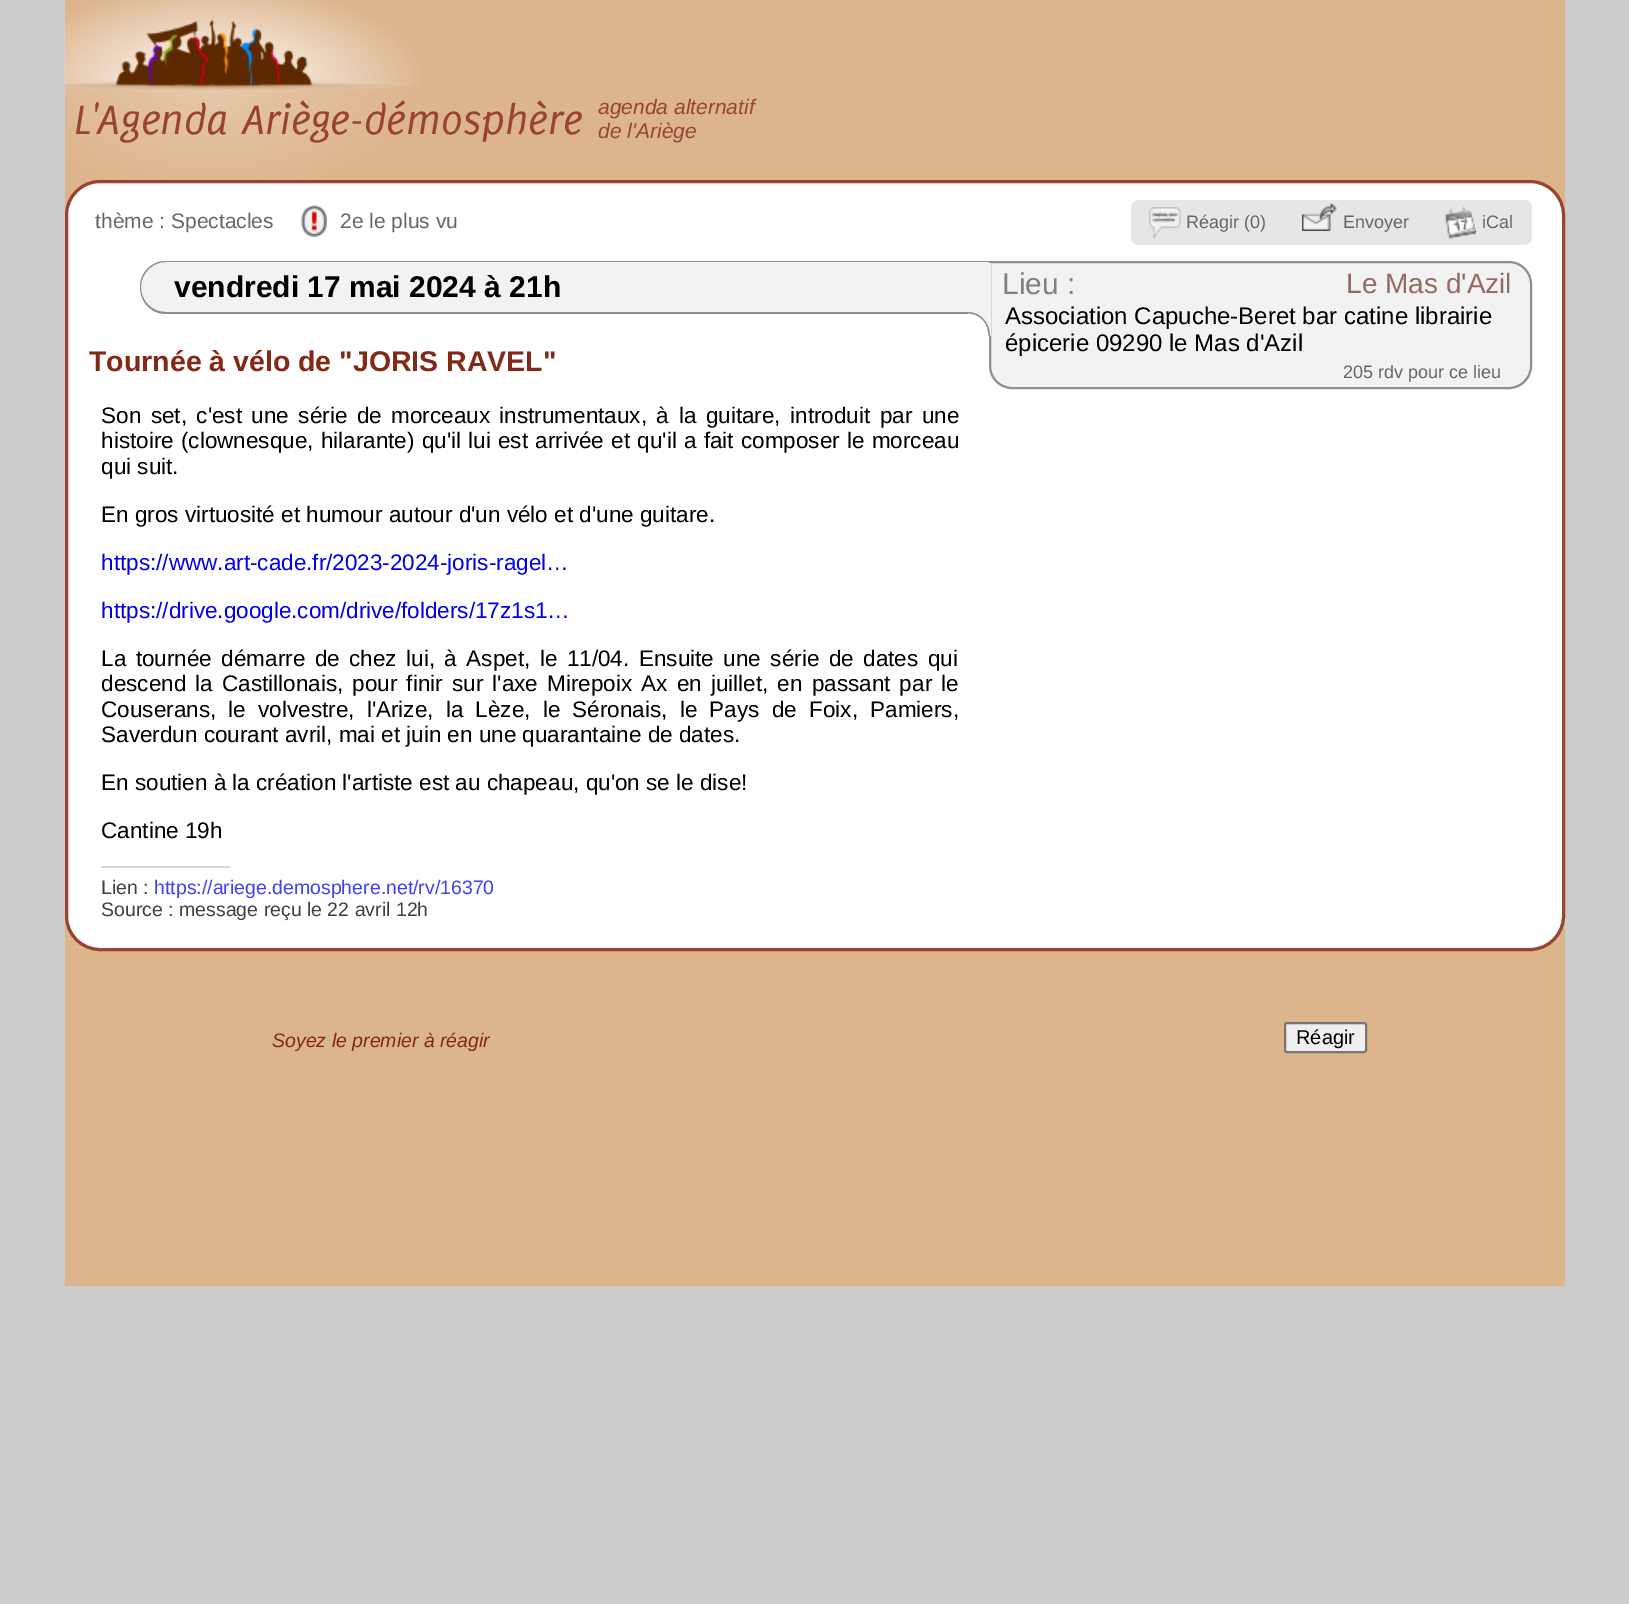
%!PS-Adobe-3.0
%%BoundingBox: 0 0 1629 1604
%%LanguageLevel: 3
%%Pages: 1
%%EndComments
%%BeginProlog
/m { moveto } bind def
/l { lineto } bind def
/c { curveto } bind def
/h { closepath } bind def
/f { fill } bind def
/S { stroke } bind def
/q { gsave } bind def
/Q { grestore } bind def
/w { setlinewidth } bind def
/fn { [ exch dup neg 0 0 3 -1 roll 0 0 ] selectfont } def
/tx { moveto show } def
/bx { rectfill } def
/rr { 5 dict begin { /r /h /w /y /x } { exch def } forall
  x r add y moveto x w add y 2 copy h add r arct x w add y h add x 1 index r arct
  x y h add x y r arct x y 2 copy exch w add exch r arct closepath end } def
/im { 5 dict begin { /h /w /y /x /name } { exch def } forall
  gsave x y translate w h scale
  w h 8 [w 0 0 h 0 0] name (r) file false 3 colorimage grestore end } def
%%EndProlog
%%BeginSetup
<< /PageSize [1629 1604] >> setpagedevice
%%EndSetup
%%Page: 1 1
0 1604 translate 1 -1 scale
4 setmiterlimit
0.8 setgray
0 0 1629 1604 bx
0.867 0.71 0.553 setrgbcolor
65 0 1500 1286 bx
(image0.raw) 64 0 356 180 im
/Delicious-MediumItalic 45 fn
0.6 0.267 0.2 setrgbcolor
(L'Agenda Ariège-démosphère) 74 134 tx
/LiberationSans-Italic 21 fn
(agenda alternatif) 598 114 tx
(de l'Ariège) 598 138 tx
1 setgray
66.5 181.5 1497 768 33.5 rr q f Q
0.6 0.267 0.2 setrgbcolor
3 w
S
/LiberationSans-Regular 21 fn
0.4 setgray
(thème : Spectacles) 95 228 tx
(image1.raw) 301 205 26 32 im
(2e le plus vu) 340 228 tx
0.902 setgray
1131 200 401 45 8 rr f
(image2.raw) 1149 207 32 32 im
/LiberationSans-Regular 18 fn
0.4 setgray
(Réagir \(0\)) 1186 228 tx
(image3.raw) 1302 202 35 29 im
(Envoyer) 1343 228 tx
(image4.raw) 1444 207 32 32 im
(iCal) 1482 228 tx
0.949 setgray
166.5 261 m 1115 261 l 1115 314 l 166.5 314 l 152 314 140 302 140 287.5 c 140 273 152 261 166.5 261 c h f
0.561 setgray
166 261 m 1114 261 l 1114 314 l 166 314 l 151 314 140 302 140 287 c 140 273 151 261 166 261 c h 166 262 m 1114 262 l 1114 312 l 166 312 l 152 312 141 301 141 287 c 141 274 152 262 166 262 c h eofill
/LiberationSans-Bold 30 fn
0 setgray
(vendredi 17 mai 2024 à 21h) 174 297 tx
0.949 setgray
990 262 m 1509 262 l 1521 262 1531 272 1531 284 c 1531 366 l 1531 378 1521 388 1509 388 c 1012 388 l 1000 388 990 378 990 366 c h q f Q
0.561 setgray
2 w
S
0.949 setgray
968 263 23 73 bx
1 setgray
968 312 m 980 312 990 322 990 334 c 990 336 l 968 336 l h f
0.561 setgray
967.5 312 m 981 312 990 323 990 336 c 967.5 336 l h 967.5 313.5 m 980.5 313.5 988.5 323.5 988.5 336 c 967.5 336 l h eofill
/LiberationSans-Regular 30 fn
0.502 setgray
(Lieu :) 1002 294 tx
/LiberationSans-Regular 28 fn
0.58 0.416 0.38 setrgbcolor
(Le Mas d'Azil) 1346 293 tx
/LiberationSans-Regular 24 fn
0 setgray
(Association Capuche-Beret bar catine librairie) 1005 324 tx
(épicerie 09290 le Mas d'Azil) 1005 351 tx
/LiberationSans-Regular 18 fn
0.4 setgray
(205 rdv pour ce lieu) 1343 378 tx
/LiberationSans-Bold 28.5 fn
0.51 0.161 0.09 setrgbcolor
(Tournée à vélo de "JORIS RAVEL") 89 371 tx
/LiberationSans-Regular 22.5 fn
0 setgray
101 423 m 3.25 0 32 (Son set, c'est une série de morceaux instrumentaux, à la guitare, introduit par une) widthshow
101 448 m 1 0 32 (histoire \(clownesque, hilarante\) qu'il lui est arrivée et qu'il a fait composer le morceau) widthshow
(qui suit.) 101 474 tx
(En gros virtuosité et humour autour d'un vélo et d'une guitare.) 101 522 tx
0 0 0.933 setrgbcolor
(https://www.art-cade.fr/2023-2024-joris-ragel…) 101 570 tx
(https://drive.google.com/drive/folders/17z1s1…) 101 618 tx
0 setgray
101 666 m 3.25 0 32 (La tournée démarre de chez lui, à Aspet, le 11/04. Ensuite une série de dates qui) widthshow
101 691 m 2.9 0 32 (descend la Castillonais, pour finir sur l'axe Mirepoix Ax en juillet, en passant par le) widthshow
101 717 m 6 0 32 (Couserans, le volvestre, l'Arize, la Lèze, le Séronais, le Pays de Foix, Pamiers,) widthshow
(Saverdun courant avril, mai et juin en une quarantaine de dates.) 101 742 tx
(En soutien à la création l'artiste est au chapeau, qu'on se le dise!) 101 790 tx
(Cantine 19h) 101 838 tx
0.851 setgray
101 866 129 2 bx
/LiberationSans-Regular 19.5 fn
0.251 setgray
(Lien :) 101 894 tx
0.251 0.251 0.949 setrgbcolor
(https://ariege.demosphere.net/rv/16370) 154 894 tx
0.251 setgray
(Source : message reçu le 22 avril 12h) 101 916 tx
/LiberationSans-Italic 19.5 fn
0.51 0.161 0.09 setrgbcolor
(Soyez le premier à réagir) 272 1047 tx
0.937 setgray
1285 1023 81 29 2 rr q f Q
0.463 setgray
S
/LiberationSans-Regular 20 fn
0 setgray
(Réagir) 1296 1044 tx
showpage
%%EOF
